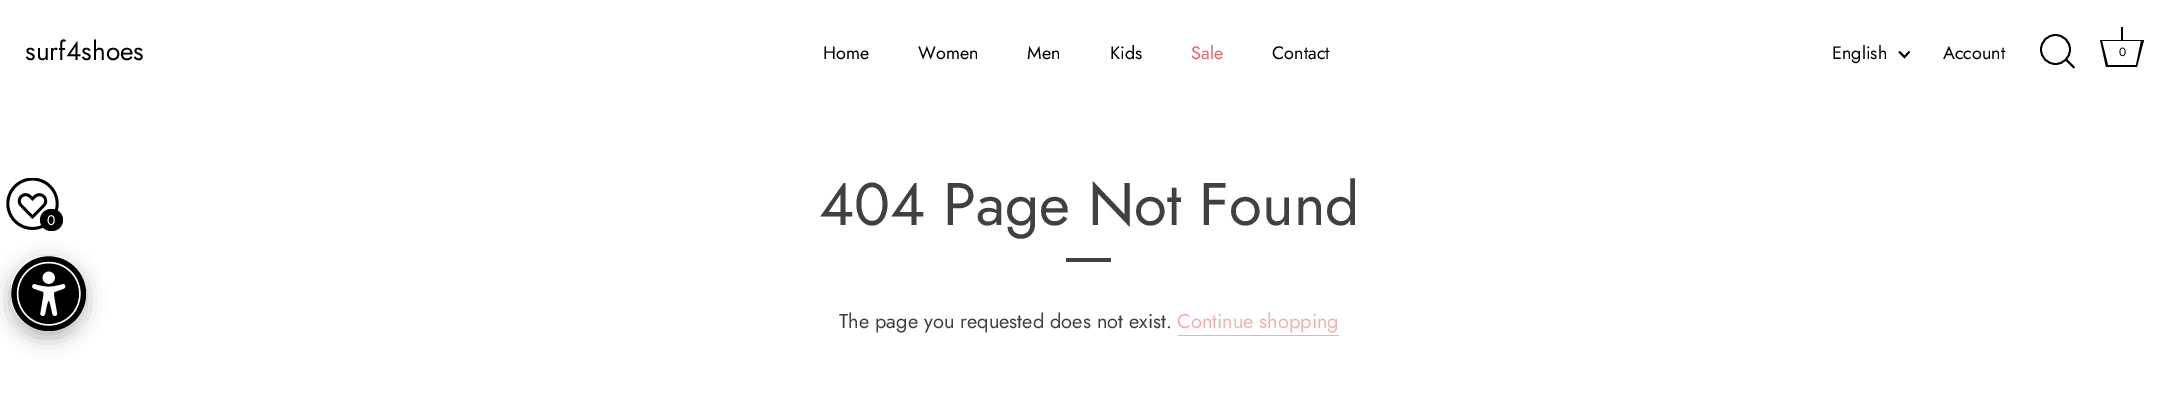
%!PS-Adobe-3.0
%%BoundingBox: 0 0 2177 407
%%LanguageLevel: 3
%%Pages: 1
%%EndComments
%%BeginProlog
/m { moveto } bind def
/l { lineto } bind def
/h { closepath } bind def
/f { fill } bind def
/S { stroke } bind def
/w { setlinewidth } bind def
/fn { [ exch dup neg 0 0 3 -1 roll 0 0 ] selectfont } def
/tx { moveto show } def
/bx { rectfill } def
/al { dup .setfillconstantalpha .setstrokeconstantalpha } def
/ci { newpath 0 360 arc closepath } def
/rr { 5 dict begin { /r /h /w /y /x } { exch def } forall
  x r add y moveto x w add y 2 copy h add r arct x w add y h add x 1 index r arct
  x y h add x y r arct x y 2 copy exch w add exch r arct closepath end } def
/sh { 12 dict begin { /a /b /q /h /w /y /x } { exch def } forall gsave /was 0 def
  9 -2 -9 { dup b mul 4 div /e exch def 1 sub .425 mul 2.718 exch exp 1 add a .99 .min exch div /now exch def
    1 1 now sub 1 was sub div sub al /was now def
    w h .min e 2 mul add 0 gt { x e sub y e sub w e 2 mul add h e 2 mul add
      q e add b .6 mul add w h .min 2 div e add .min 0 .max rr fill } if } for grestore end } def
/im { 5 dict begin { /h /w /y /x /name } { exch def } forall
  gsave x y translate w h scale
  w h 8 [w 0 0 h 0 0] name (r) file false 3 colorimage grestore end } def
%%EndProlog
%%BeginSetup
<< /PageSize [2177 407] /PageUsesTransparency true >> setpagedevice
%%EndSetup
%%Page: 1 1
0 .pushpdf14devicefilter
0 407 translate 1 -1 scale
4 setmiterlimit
1 setgray
0 0 2177 407 bx
/Jost-Regular 26.25 fn
0 setgray
(surf4shoes) 25 60 tx
/Jost-Regular 18 fn
(Home) 823 59 tx
(Women) 918 59 tx
(Men) 1027 59 tx
(Kids) 1110 59 tx
0.867 0.4 0.4 setrgbcolor
(Sale) 1191 59 tx
0 setgray
(Contact) 1272 59 tx
(English) 1832 59 tx
1.8 w
1 setlinecap
1899.5 52 m 1904.5 57 l 1909 52 l S
(Account) 1943 59 tx
0 setlinecap
2055.5 49.5 14.5 ci S
1 setlinecap
1 setlinejoin
2074 67.5 m 2066 59.5 l S
2121 27 2 13 bx
2141 41 m 2136 65 l 2108 65 l 2102 41 l 2141 41 l 2144 40 m 2100 40 l 2106 67 l 2137 67 l h f
/Jost-Regular 12 fn
(0) 2119 56 tx
(image0.raw) 6 178 53 52 im
40 209 23 22 11 rr f
/Jost-Regular 14 fn
1 setgray
(0) 47 225 tx
/Jost-Regular 60 fn
0.255 0.247 0.247 setrgbcolor
(404 Page Not Found) 819 225 tx
1066 258 45 4 bx
/Jost-Regular 20 fn
(The page you requested does not exist.) 839 328 tx
0.925 0.694 0.69 setrgbcolor
(Continue shopping) 1177 328 tx
1178 335 161 1 bx
0 setgray
10 261 76 77 38 9.5 0.3 sh
(image1.raw) 11 256 75 75 im
.poppdf14devicefilter showpage
%%EOF
